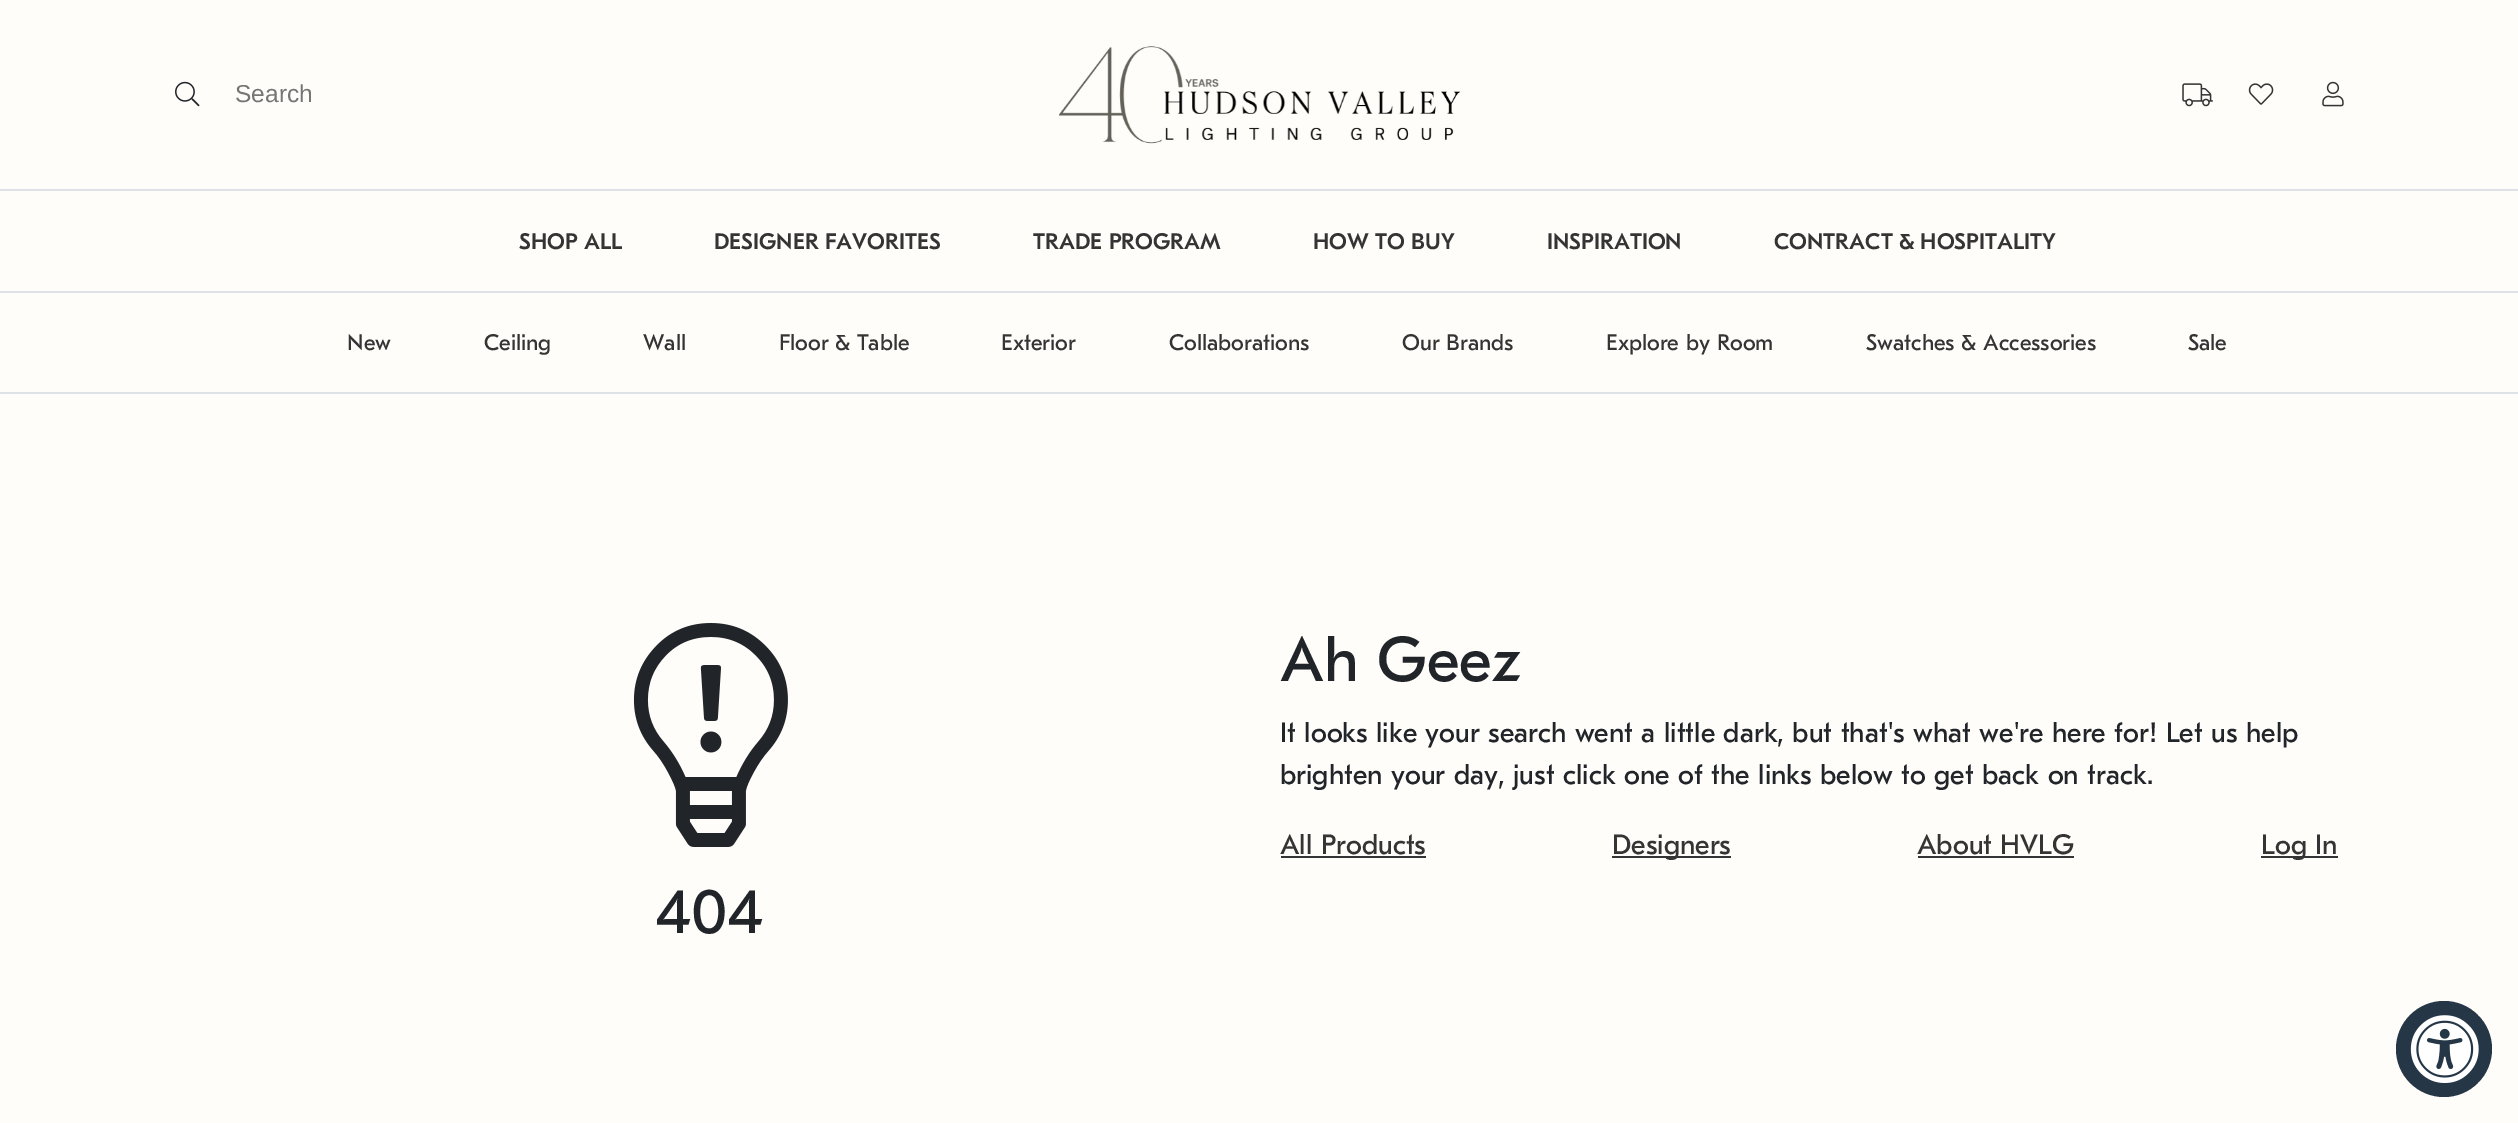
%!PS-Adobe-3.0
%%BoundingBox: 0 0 2518 1123
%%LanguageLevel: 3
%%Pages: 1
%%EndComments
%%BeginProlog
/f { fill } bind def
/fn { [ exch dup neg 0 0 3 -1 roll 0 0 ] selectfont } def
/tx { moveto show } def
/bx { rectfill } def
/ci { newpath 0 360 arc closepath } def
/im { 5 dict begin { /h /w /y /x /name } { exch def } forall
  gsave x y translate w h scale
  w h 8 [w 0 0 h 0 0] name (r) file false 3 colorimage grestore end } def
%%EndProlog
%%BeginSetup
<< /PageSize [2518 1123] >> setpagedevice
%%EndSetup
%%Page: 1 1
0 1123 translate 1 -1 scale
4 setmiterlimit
1 0.992 0.98 setrgbcolor
0 0 2518 1123 bx
0.871 0.886 0.902 setrgbcolor
0 189 2518 2 bx
(image0.raw) 175 81 25 26 im
/LiberationSans-Regular 24.5 fn
0.459 setgray
(Search) 235 102 tx
(image1.raw) 1059 46 401 98 im
(image2.raw) 2182 83 31 24 im
(image3.raw) 2248 83 26 22 im
(image4.raw) 2322 81 22 26 im
0.871 0.886 0.902 setrgbcolor
0 291 2518 2 bx
/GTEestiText-Medium 22.4 fn
0.204 setgray
(SHOP ALL) 519 249 tx
(DESIGNER FAVORITES) 714 249 tx
(TRADE PROGRAM) 1033 249 tx
(HOW TO BUY) 1313 249 tx
(INSPIRATION) 1547 249 tx
(CONTRACT & HOSPITALITY) 1774 249 tx
0.871 0.886 0.902 setrgbcolor
0 392 2518 2 bx
/GTEestiText-Regular 22.4 fn
0.204 setgray
(New) 347 350 tx
(Ceiling) 484 350 tx
(Wall) 643 350 tx
(Floor & Table) 779 350 tx
(Exterior) 1001 350 tx
(Collaborations) 1169 350 tx
(Our Brands) 1402 350 tx
(Explore by Room) 1606 350 tx
(Swatches & Accessories) 1866 350 tx
(Sale) 2188 350 tx
/GTEestiText-Regular 63 fn
0.129 0.145 0.161 setrgbcolor
(Ah Geez) 1280 681 tx
/GTEestiText-Regular 28 fn
(It looks like your search went a little dark, but that's what we're here for! Let us help) 1280 742 tx
(brighten your day, just click one of the links below to get back on track.) 1280 784 tx
0.204 setgray
(All Products) 1280 854 tx
1281 856 145 2 bx
1612 856 119 2 bx
(Designers) 1612 854 tx
(About HVLG) 1917 854 tx
1918 856 156 2 bx
2261 856 77 2 bx
(Log In) 2261 854 tx
(image5.raw) 633 623 155 224 im
/GTEestiText-Regular 63 fn
0.129 0.145 0.161 setrgbcolor
(404) 656 933 tx
0.145 0.216 0.275 setrgbcolor
2444 1049 48 ci f
(image6.raw) 2410 1015 69 68 im
showpage
%%EOF
